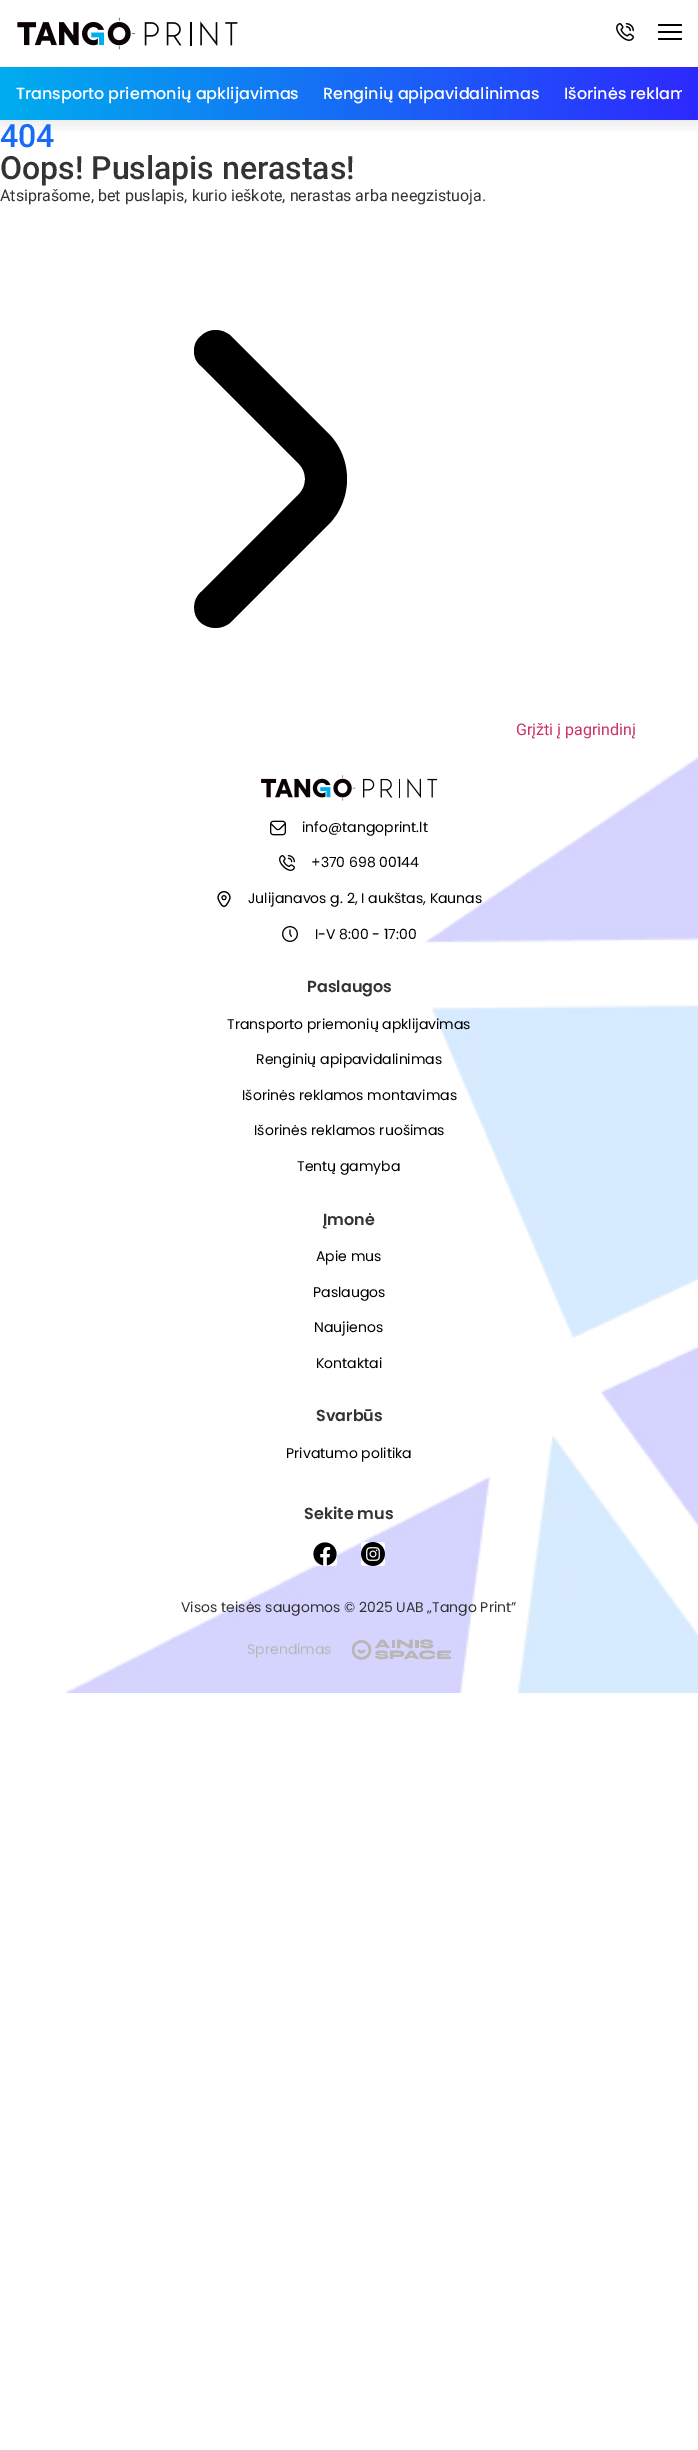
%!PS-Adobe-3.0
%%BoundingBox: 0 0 698 2450
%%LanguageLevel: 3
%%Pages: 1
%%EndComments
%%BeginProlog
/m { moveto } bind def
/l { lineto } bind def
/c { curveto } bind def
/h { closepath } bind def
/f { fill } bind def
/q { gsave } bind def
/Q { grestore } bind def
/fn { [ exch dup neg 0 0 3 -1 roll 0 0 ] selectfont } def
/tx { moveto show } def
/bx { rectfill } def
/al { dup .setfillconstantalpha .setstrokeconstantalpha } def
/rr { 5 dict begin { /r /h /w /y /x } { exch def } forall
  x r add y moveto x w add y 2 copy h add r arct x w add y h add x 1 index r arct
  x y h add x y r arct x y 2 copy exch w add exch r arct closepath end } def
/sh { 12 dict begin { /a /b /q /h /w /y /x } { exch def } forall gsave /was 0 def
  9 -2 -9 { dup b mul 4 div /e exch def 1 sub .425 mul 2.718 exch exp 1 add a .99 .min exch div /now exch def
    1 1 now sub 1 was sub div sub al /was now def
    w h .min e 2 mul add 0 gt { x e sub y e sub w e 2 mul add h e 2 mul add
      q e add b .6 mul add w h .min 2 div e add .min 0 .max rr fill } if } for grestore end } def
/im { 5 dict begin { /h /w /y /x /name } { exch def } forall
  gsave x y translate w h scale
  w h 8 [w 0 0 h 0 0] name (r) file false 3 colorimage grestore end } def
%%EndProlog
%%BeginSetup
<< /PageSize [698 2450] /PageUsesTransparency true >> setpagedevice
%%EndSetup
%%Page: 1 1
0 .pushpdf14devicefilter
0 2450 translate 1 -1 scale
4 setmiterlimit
1 setgray
0 0 698 2450 bx
q
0 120 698 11 rectclip
0 setgray
0 4 698 120 0 8 0.1 sh
Q
(image0.raw) 17 17 221 33 im
(image1.raw) 616 23 18 18 im
0 setgray
658 31 24 2 1 rr f
658 24 24 2 1 rr f
658 38 24 2 1 rr f
q 0 67 m 698 67 l 698 120 l 0 120 l h clip newpath
<< /ShadingType 2 /ColorSpace /DeviceRGB /Coords [698 94 0 93] /Extend [true true] /Function << /FunctionType 2 /Domain [0 1] /C0 [0.18 0.161 1] /C1 [0 0.678 0.933] /N 1 >> >> shfill Q
/Poppins-Medium 16 fn
1 setgray
(Transporto priemonių apklijavimas) 16 99 tx
(Renginių apipavidalinimas) 323 99 tx
q
16 83 666 37 rectclip
(Išorinės reklam) 564 99 tx
Q
/Roboto-Medium 32 fn
0.09 0.42 0.969 setrgbcolor
(404) 0 147 tx
0.2 setgray
(Oops! Puslapis nerastas!) 0 179 tx
/Roboto-Regular 16 fn
(Atsiprašome, bet puslapis, kurio ieškote, nerastas arba neegzistuoja.) 0 201 tx
0.8 0.2 0.4 setrgbcolor
(Grįžti į pagrindinį) 516 735 tx
0 setgray
329 434 m 231 336 l 222 328 209 328 201 336 c 196 340 194 345 194 351 c 194 357 196 362 201 366 c 299 464 l 303 468 305 473 305 479 c 305 485 303 490 299 494 c 201 592 l 192 600 192 614 200 622 c 209 630 222 630 231 622 c 329 524 l 353 499 353 459 329 434 c h f
(image2.raw) 65 757 633 936 im
(image3.raw) 261 775 177 26 im
(image4.raw) 270 820 16 16 im
/Poppins-Regular 14 fn
(info@tangoprint.lt) 302 832 tx
(image5.raw) 279 855 16 16 im
(+370 698 00144) 311 867 tx
(image6.raw) 217 891 14 16 im
(Julijanavos g. 2, I aukštas, Kaunas) 248 903 tx
(image7.raw) 282 926 16 16 im
(I-V 8:00 - 17:00) 315 939 tx
/Poppins-SemiBold 16 fn
0.2 setgray
(Paslaugos) 307 992 tx
/Poppins-Regular 14 fn
0 setgray
(Transporto priemonių apklijavimas) 227 1029 tx
(Renginių apipavidalinimas) 256 1064 tx
(Išorinės reklamos montavimas) 242 1100 tx
(Išorinės reklamos ruošimas) 254 1135 tx
(Tentų gamyba) 297 1171 tx
/Poppins-SemiBold 16 fn
0.2 setgray
(Įmonė) 323 1225 tx
/Poppins-Regular 14 fn
0 setgray
(Apie mus) 316 1261 tx
(Paslaugos) 313 1297 tx
(Naujienos) 314 1332 tx
(Kontaktai) 316 1368 tx
/Poppins-SemiBold 16 fn
0.2 setgray
(Svarbūs) 316 1421 tx
/Poppins-Regular 14 fn
0 setgray
(Privatumo politika) 286 1458 tx
/Poppins-SemiBold 16 fn
0.2 setgray
(Sekite mus) 304 1519 tx
1 setgray
313 1542 24 24 2.5 rr f
(image8.raw) 313 1542 24 24 im
361 1542 24 24 2.5 rr f
(image9.raw) 361 1542 24 24 im
/Poppins-Regular 14 fn
0.2 setgray
(Visos teisės saugomos © 2025 UAB „Tango Print”) 181 1612 tx
0.722 0.718 0.71 setrgbcolor
(Sprendimas) 247 1654 tx
(image10.raw) 352 1639 99 21 im
.poppdf14devicefilter showpage
%%EOF
